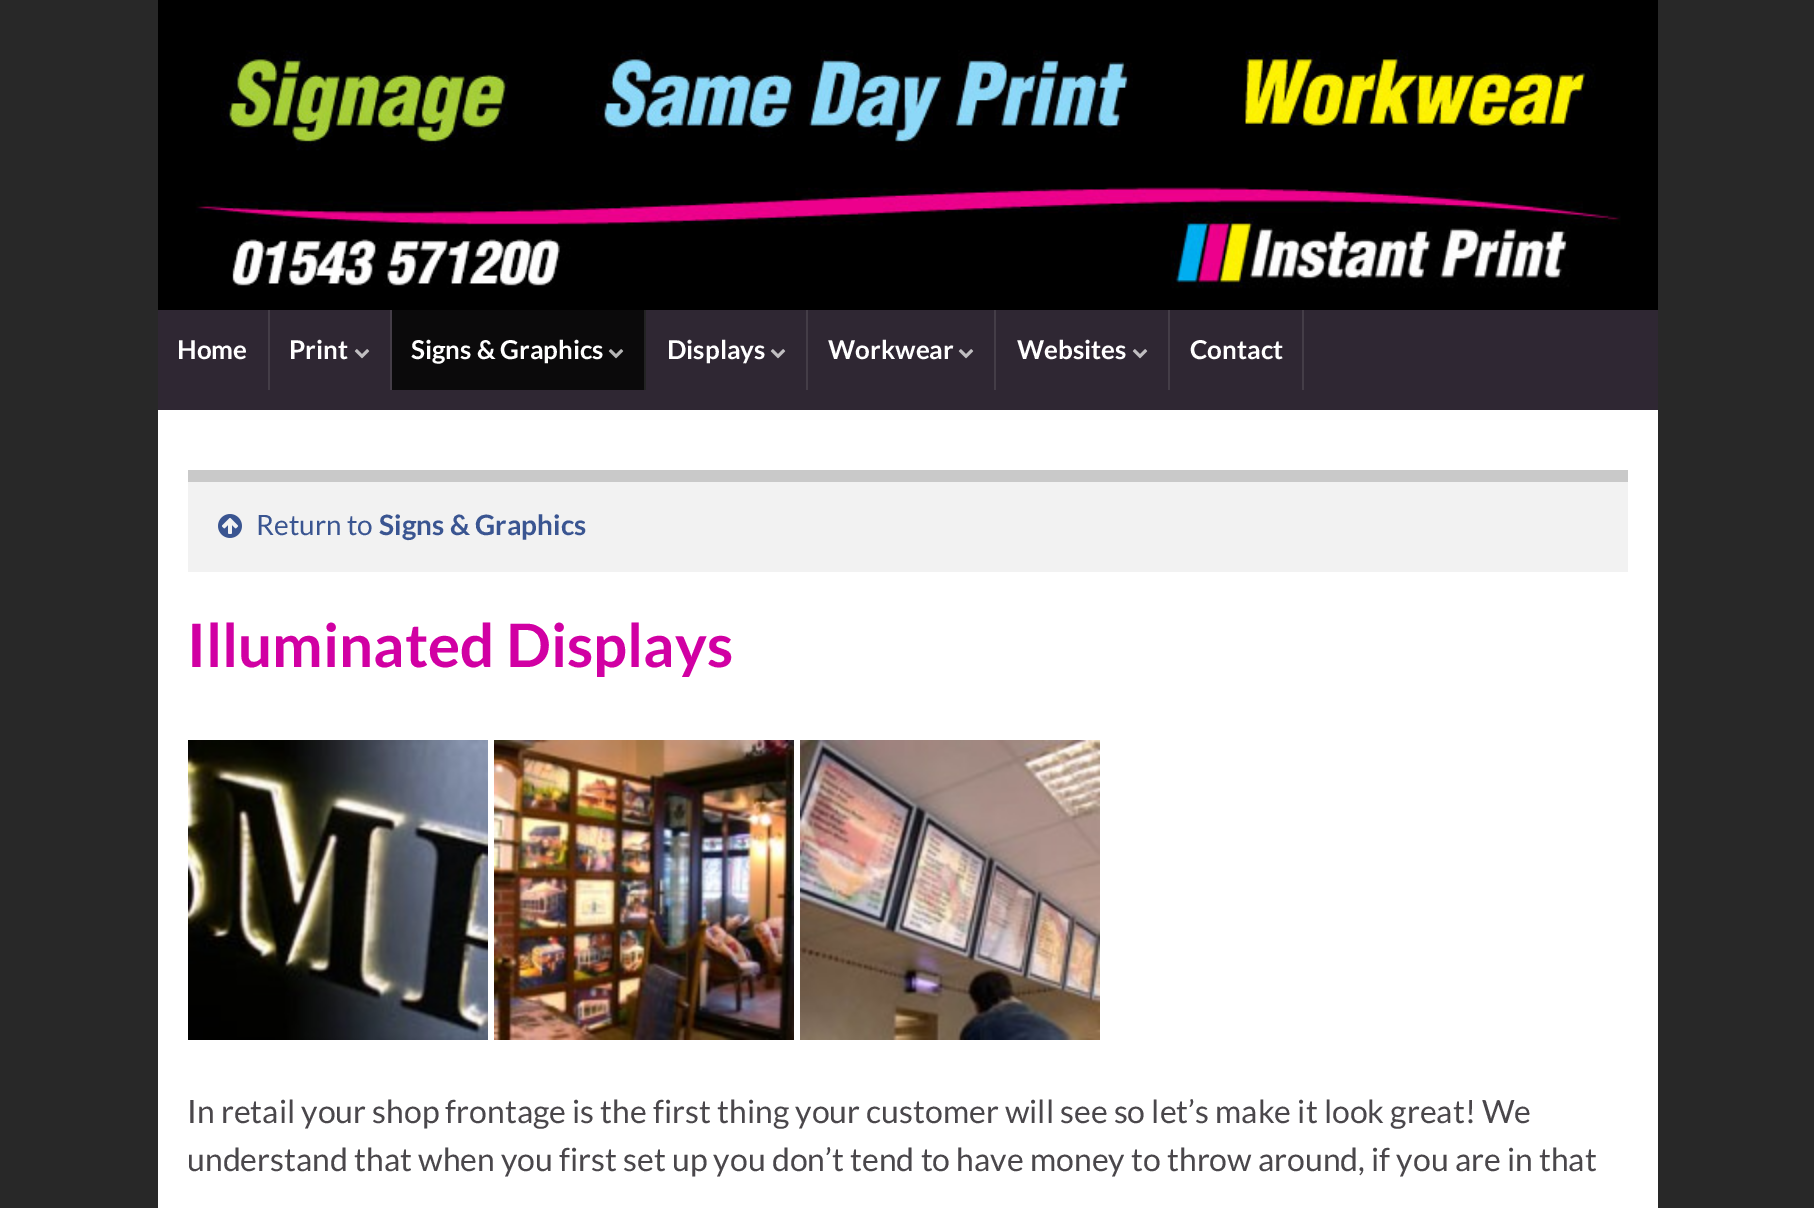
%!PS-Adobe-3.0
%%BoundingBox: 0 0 1814 1208
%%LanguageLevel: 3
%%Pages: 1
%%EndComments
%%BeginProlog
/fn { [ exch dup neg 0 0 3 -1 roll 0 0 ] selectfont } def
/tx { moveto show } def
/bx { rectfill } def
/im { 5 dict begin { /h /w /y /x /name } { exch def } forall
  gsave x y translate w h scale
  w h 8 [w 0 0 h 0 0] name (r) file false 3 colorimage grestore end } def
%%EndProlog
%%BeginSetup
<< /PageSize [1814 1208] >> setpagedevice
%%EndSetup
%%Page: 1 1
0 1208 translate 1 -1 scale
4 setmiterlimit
0.157 setgray
0 0 1814 1208 bx
(image0.raw) 158 0 1500 310 im
0.184 0.153 0.2 setrgbcolor
158 310 1500 100 bx
0.267 0.239 0.278 setrgbcolor
268 310 2 80 bx
/Lato-Bold 26 fn
1 setgray
(Home) 177 359 tx
0.267 0.239 0.278 setrgbcolor
390 310 2 80 bx
1 setgray
(Print) 289 359 tx
(image1.raw) 354 349 16 10 im
0.043 0.039 0.043 setrgbcolor
392 310 252 80 bx
0.137 setgray
644 310 2 80 bx
1 setgray
(Signs & Graphics) 411 359 tx
(image2.raw) 608 349 16 10 im
0.267 0.239 0.278 setrgbcolor
806 310 2 80 bx
1 setgray
(Displays) 667 359 tx
(image1.raw) 770 349 16 10 im
0.267 0.239 0.278 setrgbcolor
994 310 2 80 bx
1 setgray
(Workwear) 828 359 tx
(image1.raw) 958 349 16 10 im
0.267 0.239 0.278 setrgbcolor
1168 310 2 80 bx
1 setgray
(Websites) 1017 359 tx
(image1.raw) 1132 349 16 10 im
0.267 0.239 0.278 setrgbcolor
1302 310 2 80 bx
1 setgray
(Contact) 1190 359 tx
158 410 1500 798 bx
0.949 setgray
188 482 1440 90 bx
0.788 setgray
188 470 1440 12 bx
(image3.raw) 218 514 24 24 im
/Lato-Regular 28 fn
0.227 0.333 0.569 setrgbcolor
(Return to) 256 535 tx
/Lato-Bold 28 fn
(Signs & Graphics) 379 535 tx
/Lato-Bold 60 fn
0.82 0 0.639 setrgbcolor
(Illuminated Displays) 187 667 tx
(image4.raw) 188 740 300 300 im
(image5.raw) 494 740 300 300 im
(image6.raw) 800 740 300 300 im
/Lato-Regular 32 fn
0.29 0.278 0.294 setrgbcolor
(In retail your shop frontage is the first thing your customer will see so let’s make it look great! We) 187 1123 tx
(understand that when you first set up you don’t tend to have money to throw around, if you are in that) 187 1171 tx
showpage
%%EOF
